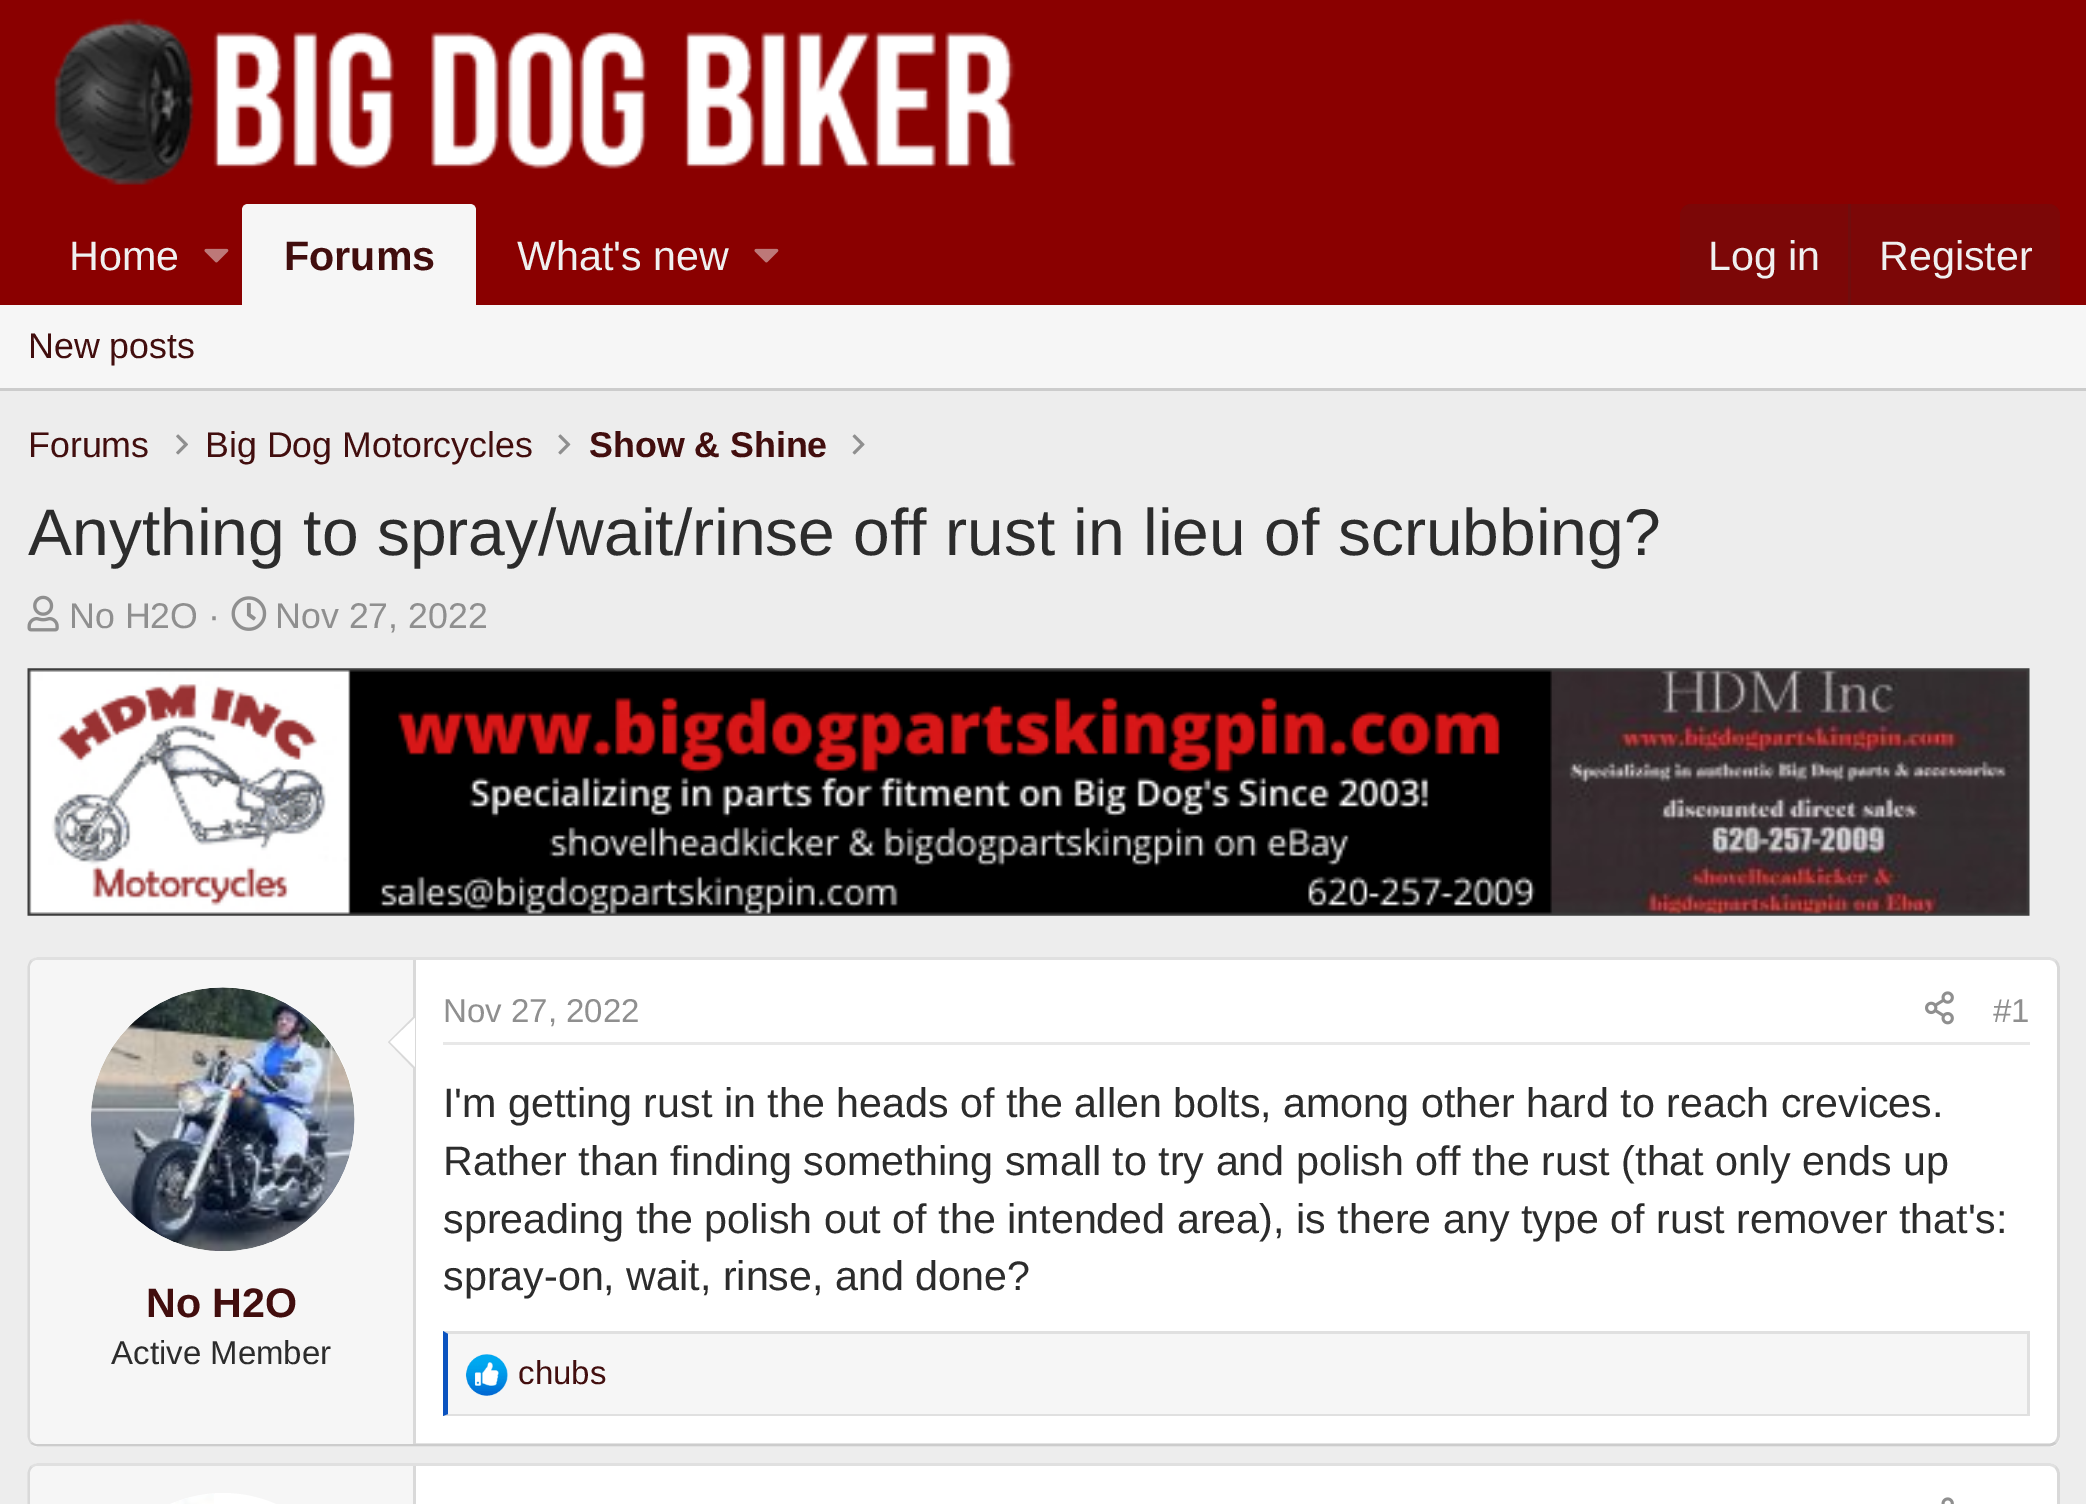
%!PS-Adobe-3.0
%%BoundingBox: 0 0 2086 1504
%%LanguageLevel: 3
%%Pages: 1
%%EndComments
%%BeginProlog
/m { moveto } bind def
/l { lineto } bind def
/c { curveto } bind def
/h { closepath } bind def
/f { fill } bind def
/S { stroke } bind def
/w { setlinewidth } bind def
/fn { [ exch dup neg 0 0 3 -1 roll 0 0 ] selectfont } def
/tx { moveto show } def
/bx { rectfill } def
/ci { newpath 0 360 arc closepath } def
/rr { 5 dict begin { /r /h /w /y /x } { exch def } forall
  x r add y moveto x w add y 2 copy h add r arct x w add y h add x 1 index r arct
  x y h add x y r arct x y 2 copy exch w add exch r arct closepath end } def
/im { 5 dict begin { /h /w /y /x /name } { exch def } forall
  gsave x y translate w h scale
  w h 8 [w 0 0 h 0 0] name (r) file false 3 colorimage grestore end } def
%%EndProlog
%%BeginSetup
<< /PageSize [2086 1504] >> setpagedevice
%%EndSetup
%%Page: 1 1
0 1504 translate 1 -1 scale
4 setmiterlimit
0.929 setgray
0 0 2086 1504 bx
0.541 0 0 setrgbcolor
0 0 2086 305 bx
(image0.raw) 54 18 962 167 im
/LiberationSans-Regular 41.25 fn
0.941 setgray
(Home) 69 270 tx
(image1.raw) 204 248 25 15 im
0.965 setgray
248 204 m 470 204 l 473.5 204 476 206.5 476 210 c 476 305 l 242 305 l 242 210 l 242 206.5 244.5 204 248 204 c h f
/LiberationSans-Bold 41.25 fn
0.259 0.055 0.055 setrgbcolor
(Forums) 284 270 tx
/LiberationSans-Regular 41.25 fn
0.941 setgray
(What's new) 517 270 tx
(image1.raw) 754 248 25 15 im
0.486 0.027 0.027 setrgbcolor
1691 204 m 2049 204 l 2055 204 2060 209 2060 215 c 2060 305 l 1680 305 l 1680 215 l 1680 209 1685 204 1691 204 c h f
0.941 setgray
(Log in) 1708 270 tx
0.439 0.051 0.051 setrgbcolor
1848 204 3 101 bx
0.941 setgray
(Register) 1879 270 tx
0.965 setgray
0 305 2086 83 bx
0.8 setgray
0 388 2086 3 bx
/LiberationSans-Regular 35.75 fn
0.259 0.055 0.055 setrgbcolor
(New posts) 28 358 tx
(Forums) 28 457 tx
(image2.raw) 176 434 12 21 im
(Big Dog Motorcycles) 205 457 tx
(image3.raw) 558 434 13 21 im
/LiberationSans-Bold 35.75 fn
(Show & Shine) 589 457 tx
(image4.raw) 852 434 13 21 im
/LiberationSans-Regular 66 fn
0.173 setgray
(Anything to spray/wait/rinse off rust in lieu of scrubbing?) 28 555 tx
(image5.raw) 27 595 32 37 im
/LiberationSans-Regular 35.75 fn
0.561 setgray
(No H2O ·) 69 628 tx
(image6.raw) 231 596 36 35 im
(Nov 27, 2022) 275 628 tx
(image7.raw) 27 668 2003 248 im
1 setgray
28 957 2032 490 11 rr f
0.878 setgray
2.8 w
31.5 961 m 33.5 959.5 36 958.5 38.5 958.5 c 2049 958.5 l 2051.5 958.5 2054 959.5 2055.5 961 c S
0.851 setgray
2055.5 961 m 2057.5 963 2058.5 965.5 2058.5 968 c 2058.5 1435.5 l 2058.5 1438 2057.5 1440.5 2055.5 1442.5 c S
0.8 setgray
2055.5 1442.5 m 2054 1444 2051.5 1445 2049 1445 c 38.5 1445 l 36 1445 33.5 1444 31.5 1442.5 c S
0.851 setgray
31.5 1442.5 m 30 1440.5 29 1438 29 1435.5 c 29 968 l 29 965.5 30 963 31.5 961 c S
0.965 setgray
38 960 m 415 960 l 415 1444 l 38 1444 l 33.5 1444 30 1440.5 30 1436 c 30 968 l 30 963.5 33.5 960 38 960 c h f
0.851 setgray
413 960 3 484 bx
1 setgray
223 1119 132 ci f
(image8.raw) 91 987 264 264 im
0.851 setgray
415 1015 m 415 1070 l 388 1042 l h f
1 setgray
415 1018 m 415 1067 l 390 1042 l h f
/LiberationSans-Bold 41.25 fn
0.259 0.055 0.055 setrgbcolor
(No H2O) 146 1317 tx
/LiberationSans-Regular 33 fn
0.173 setgray
(Active Member) 111 1364 tx
0.91 setgray
443 1042 1587 3 bx
0.561 setgray
(Nov 27, 2022) 443 1022 tx
(image9.raw) 1925 991 29 34 im
(#1) 1993 1022 tx
/LiberationSans-Regular 41.25 fn
0.173 setgray
(I'm getting rust in the heads of the allen bolts, among other hard to reach crevices.) 443 1117 tx
(Rather than finding something small to try and polish off the rust \(that only ends up) 443 1175 tx
(spreading the polish out of the intended area\), is there any type of rust remover that's:) 443 1233 tx
(spray-on, wait, rinse, and done?) 443 1290 tx
0.965 setgray
448 1334 1579 80 bx
0.878 setgray
443 1331 m 2030 1331 l 2027 1334 l 448 1334 l h f
2027 1331 3 85 bx
2030 1416 m 443 1416 l 448 1414 l 2027 1414 l h f
0.043 0.325 0.749 setrgbcolor
443 1416 m 443 1331 l 448 1334 l 448 1414 l h f
(image10.raw) 465 1354 43 42 im
/LiberationSans-Regular 33 fn
0.259 0.055 0.055 setrgbcolor
(chubs) 518 1384 tx
1 setgray
28 1463 2032 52 11 rr f
0.878 setgray
31.5 1467 m 33.5 1465.5 36 1464.5 38.5 1464.5 c 2049 1464.5 l 2051.5 1464.5 2054 1465.5 2055.5 1467 c S
0.851 setgray
2055.5 1467 m 2057.5 1469 2058.5 1471.5 2058.5 1474 c 2058.5 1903 l 2058.5 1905.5 2057.5 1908 2055.5 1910 c S
31.5 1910 m 30 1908 29 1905.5 29 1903 c 29 1474 l 29 1471.5 30 1469 31.5 1467 c S
0.965 setgray
38 1466 m 415 1466 l 415 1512 l 38 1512 l 33.5 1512 30 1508.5 30 1504 c 30 1474 l 30 1469.5 33.5 1466 38 1466 c h f
0.851 setgray
413 1466 3 38 bx
1 setgray
91 1493 264 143 132 rr f
(image11.raw) 175 1494 39 10 im
(image12.raw) 1941 1497 13 7 im
showpage
%%EOF
